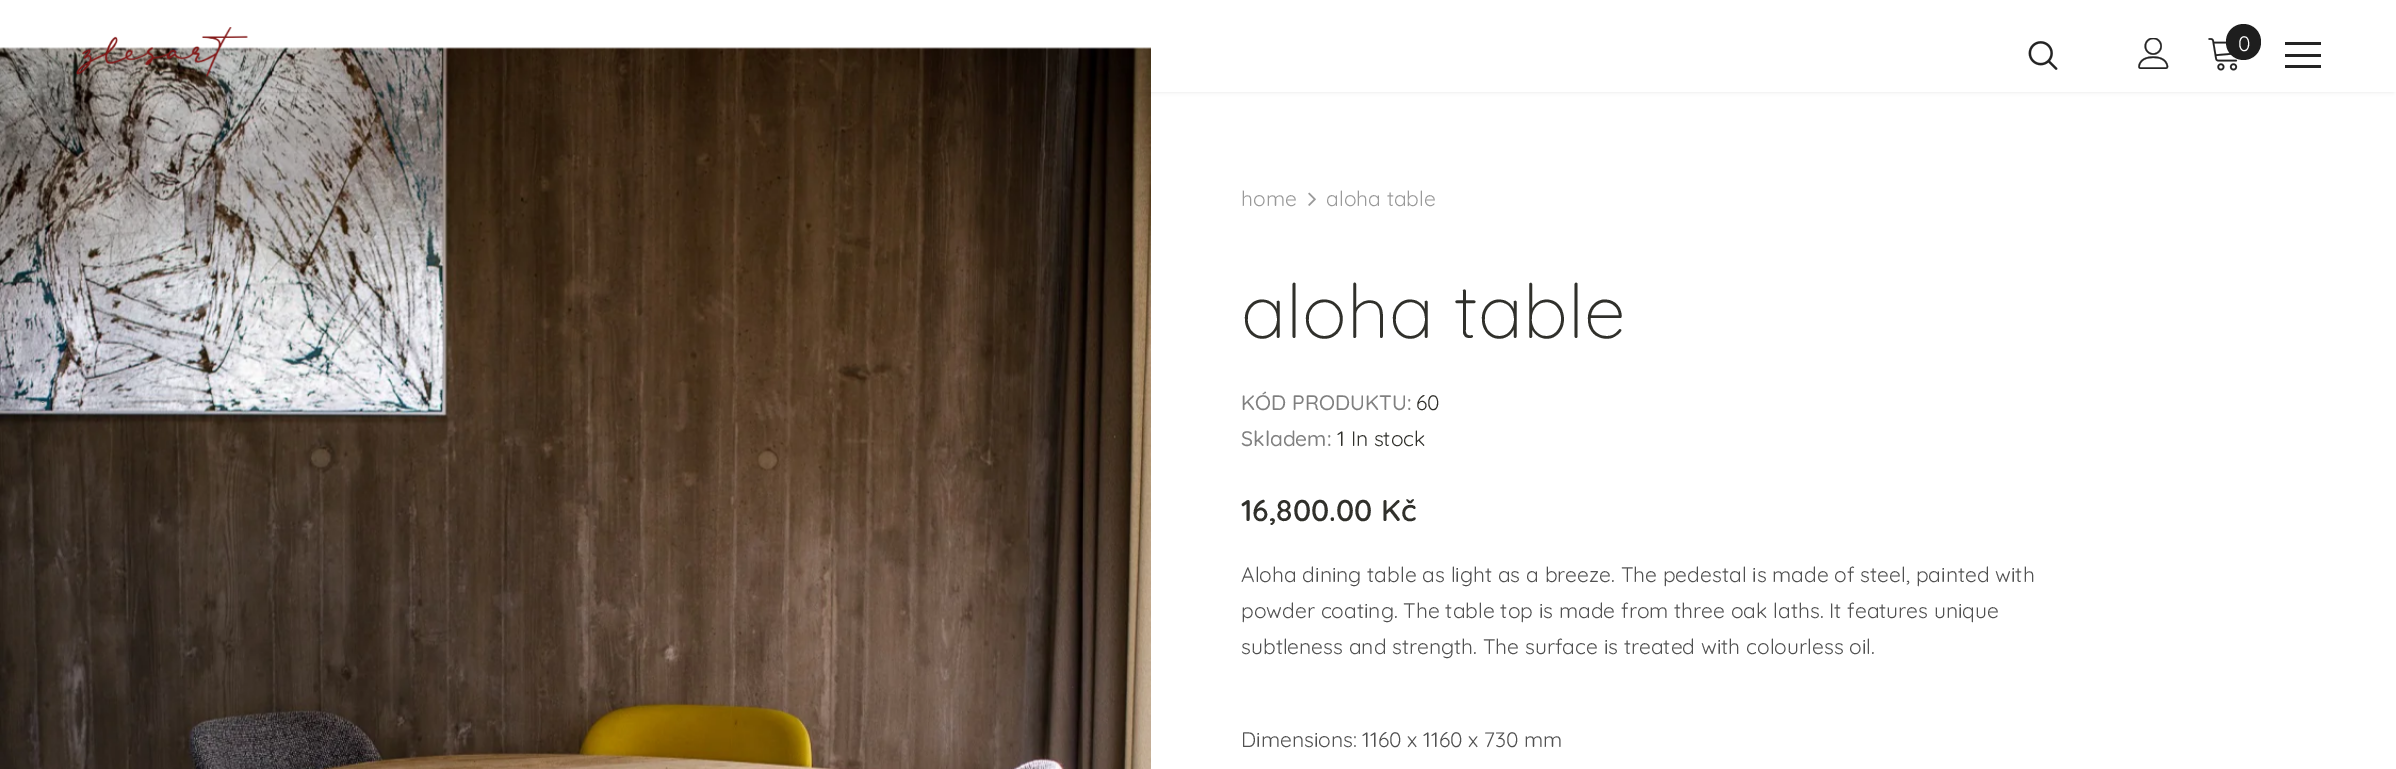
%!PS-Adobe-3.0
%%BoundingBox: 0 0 2396 769
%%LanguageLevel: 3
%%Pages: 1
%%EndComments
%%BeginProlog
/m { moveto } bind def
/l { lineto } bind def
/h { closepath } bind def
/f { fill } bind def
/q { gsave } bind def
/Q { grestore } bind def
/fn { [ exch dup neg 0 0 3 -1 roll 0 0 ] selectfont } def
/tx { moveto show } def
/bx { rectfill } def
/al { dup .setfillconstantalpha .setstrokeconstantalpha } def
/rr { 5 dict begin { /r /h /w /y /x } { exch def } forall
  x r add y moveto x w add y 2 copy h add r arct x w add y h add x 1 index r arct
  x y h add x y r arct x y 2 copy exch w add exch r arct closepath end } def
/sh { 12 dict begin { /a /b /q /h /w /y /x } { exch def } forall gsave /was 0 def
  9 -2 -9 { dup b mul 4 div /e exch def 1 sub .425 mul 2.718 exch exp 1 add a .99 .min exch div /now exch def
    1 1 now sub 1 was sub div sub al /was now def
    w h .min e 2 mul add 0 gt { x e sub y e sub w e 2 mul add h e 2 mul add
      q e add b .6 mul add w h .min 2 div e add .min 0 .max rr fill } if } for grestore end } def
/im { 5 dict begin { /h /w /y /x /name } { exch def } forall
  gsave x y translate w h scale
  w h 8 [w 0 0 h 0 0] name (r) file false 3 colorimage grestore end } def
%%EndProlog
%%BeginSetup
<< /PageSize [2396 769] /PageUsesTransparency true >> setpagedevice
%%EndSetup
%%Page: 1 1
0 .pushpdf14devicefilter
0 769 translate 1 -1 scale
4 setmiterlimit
1 setgray
0 0 2396 769 bx
(image4.raw) 0 47 1151 722 im
q
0 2 m 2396 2 l 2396 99 l 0 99 l h 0 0 m 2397 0 l 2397 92 l 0 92 l h eoclip newpath
0 setgray
5 9 2388 83 0 2 0.1 sh
Q
(image0.raw) 76 27 172 50 im
(image1.raw) 2028 41 30 29 im
(image2.raw) 2138 38 31 31 im
(image3.raw) 2208 38 30 33 im
0.118 setgray
2226 24 35 36 17.5 rr f
/Quicksand-Regular 21 fn
1 setgray
(0) 2238 51 tx
0.137 setgray
2285 42 36 3 bx
2285 54 36 3 bx
2285 65 36 3 bx
/Quicksand-SemiBold 18 fn
0.439 0.51 0.537 setrgbcolor
q 44 404 translate -90 rotate 0 0 m 1 0 (.) ashow Q
/Quicksand-Regular 21 fn
0.6 setgray
(home) 1241 206 tx
(image5.raw) 1308 192 8 14 im
(aloha table) 1326 206 tx
/Quicksand-Light 75 fn
0.188 0.188 0.169 setrgbcolor
(aloha table) 1241 338 tx
/Quicksand-Medium 21 fn
0.502 setgray
(KÓD PRODUKTU:) 1241 410 tx
/Quicksand-Regular 21 fn
0.188 0.188 0.169 setrgbcolor
(60) 1416 410 tx
/Quicksand-Medium 21 fn
0.502 setgray
(Skladem:) 1241 446 tx
/Quicksand-Regular 21 fn
0.188 0.188 0.169 setrgbcolor
(1 In stock) 1337 446 tx
/Quicksand-SemiBold 30 fn
(16,800.00 Kč) 1241 521 tx
/Quicksand-Regular 21 fn
0.314 setgray
(Aloha dining table as light as a breeze. The pedestal is made of steel, painted with) 1241 582 tx
(powder coating. The table top is made from three oak laths. It features unique) 1241 618 tx
(subtleness and strength. The surface is treated with colourless oil.) 1241 654 tx
(Dimensions: 1160 x 1160 x 730 mm) 1241 747 tx
.poppdf14devicefilter showpage
%%EOF
